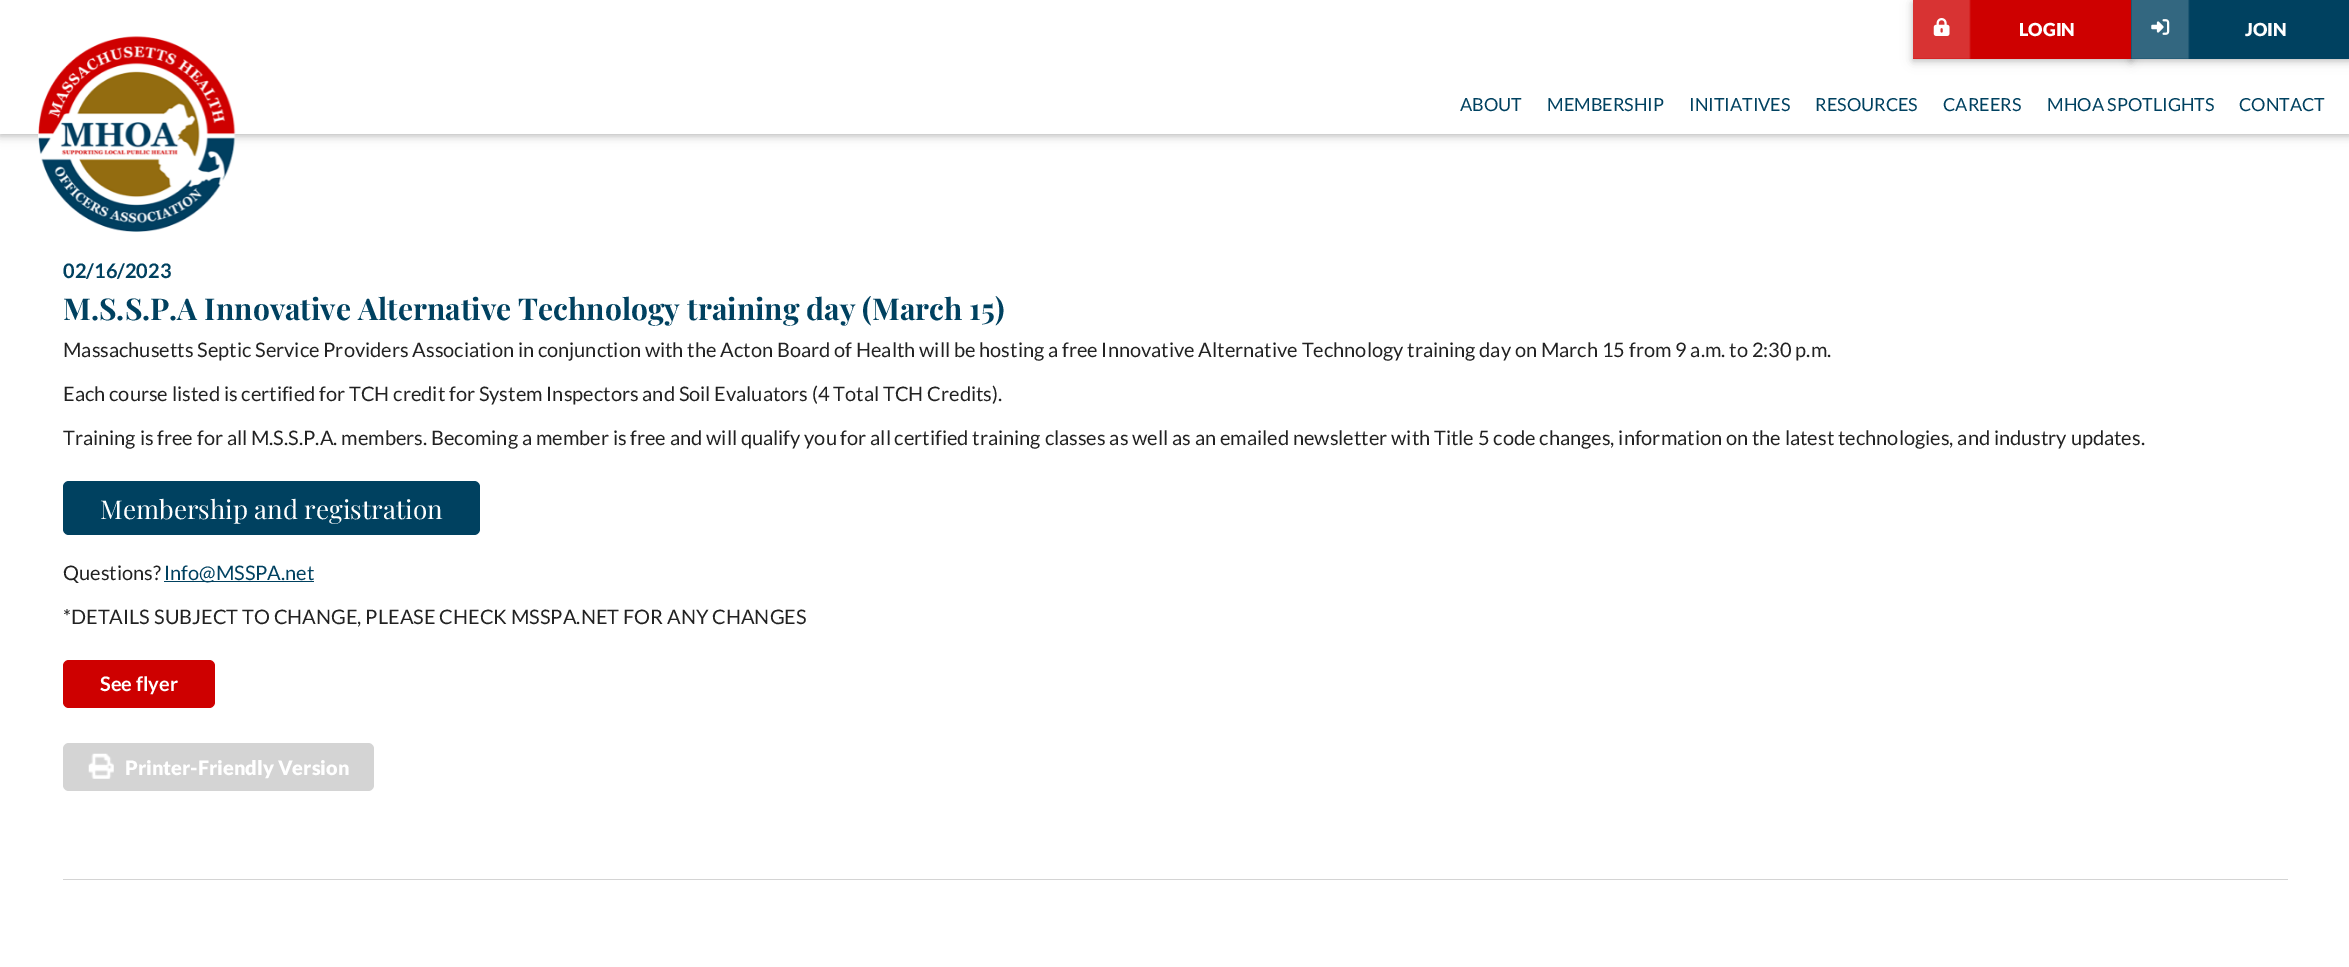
%!PS-Adobe-3.0
%%BoundingBox: 0 0 2349 967
%%LanguageLevel: 3
%%Pages: 1
%%EndComments
%%BeginProlog
/f { fill } bind def
/fn { [ exch dup neg 0 0 3 -1 roll 0 0 ] selectfont } def
/tx { moveto show } def
/bx { rectfill } def
/al { dup .setfillconstantalpha .setstrokeconstantalpha } def
/rr { 5 dict begin { /r /h /w /y /x } { exch def } forall
  x r add y moveto x w add y 2 copy h add r arct x w add y h add x 1 index r arct
  x y h add x y r arct x y 2 copy exch w add exch r arct closepath end } def
/sh { 12 dict begin { /a /b /q /h /w /y /x } { exch def } forall gsave /was 0 def
  9 -2 -9 { dup b mul 4 div /e exch def 1 sub .425 mul 2.718 exch exp 1 add a .99 .min exch div /now exch def
    1 1 now sub 1 was sub div sub al /was now def
    w h .min e 2 mul add 0 gt { x e sub y e sub w e 2 mul add h e 2 mul add
      q e add b .6 mul add w h .min 2 div e add .min 0 .max rr fill } if } for grestore end } def
/im { 5 dict begin { /h /w /y /x /name } { exch def } forall
  gsave x y translate w h scale
  w h 8 [w 0 0 h 0 0] name (r) file false 3 colorimage grestore end } def
%%EndProlog
%%BeginSetup
<< /PageSize [2349 967] /PageUsesTransparency true >> setpagedevice
%%EndSetup
%%Page: 1 1
0 .pushpdf14devicefilter
0 967 translate 1 -1 scale
4 setmiterlimit
1 setgray
0 0 2349 967 bx
0 setgray
0 3 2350 133 0 6 0.12 sh
0 3 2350 133 0 3 0.16 sh
1 setgray
0 0 1913 50 bx
0 50 2349 84 bx
0 setgray
1913 3 218 58 0 6 0.12 sh
1913 3 218 58 0 3 0.16 sh
2131 3 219 58 0 6 0.12 sh
2131 3 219 58 0 3 0.16 sh
0.808 0 0 setrgbcolor
1913 0 218 59 bx
(image0.raw) 1913 0 58 59 im
(image1.raw) 1933 18 17 18 im
/Lato-Black 18 fn
1 setgray
(LOGIN) 2019 36 tx
0 0.255 0.376 setrgbcolor
2131 0 218 59 bx
(image2.raw) 2131 0 59 59 im
(image3.raw) 2151 19 19 16 im
1 setgray
(JOIN) 2245 36 tx
(image4.raw) 38 36 198 196 im
/Lato-Regular 18 fn
0 0.255 0.376 setrgbcolor
(ABOUT) 1460 111 tx
(MEMBERSHIP) 1547 111 tx
(INITIATIVES) 1689 111 tx
(RESOURCES) 1815 111 tx
(CAREERS) 1943 111 tx
(MHOA SPOTLIGHTS) 2047 111 tx
(CONTACT) 2239 111 tx
/Lato-Bold 20 fn
(02/16/2023) 63 278 tx
/PlayfairDisplay-Bold 30 fn
(M.S.S.P.A Innovative Alternative Technology training day \(March 15\)) 63 320 tx
/Lato-Regular 20 fn
0.133 setgray
(Massachusetts Septic Service Providers Association in conjunction with the Acton Board of Health will be hosting a free Innovative Alternative Technology training day on March 15 from 9 a.m. to 2:30 p.m.) 63 357 tx
(Each course listed is certified for TCH credit for System Inspectors and Soil Evaluators \(4 Total TCH Credits\).) 63 401 tx
(Training is free for all M.S.S.P.A. members. Becoming a member is free and will qualify you for all certified training classes as well as an emailed newsletter with Title 5 code changes, information on the latest technologies, and industry updates.) 63 445 tx
0 0.255 0.376 setrgbcolor
63 481 417 54 6 rr f
/PlayfairDisplay-Regular 26 fn
1 setgray
(Membership and registration) 100 519 tx
/Lato-Regular 20 fn
0.133 setgray
(Questions?) 63 580 tx
0 0.255 0.376 setrgbcolor
164 581 150 1 bx
(Info@MSSPA.net) 164 580 tx
0.133 setgray
(*DETAILS SUBJECT TO CHANGE, PLEASE CHECK MSSPA.NET FOR ANY CHANGES) 63 624 tx
0.808 0 0 setrgbcolor
63 660 152 48 6 rr f
/Lato-Bold 20 fn
1 setgray
(See flyer) 100 691 tx
0.831 setgray
63 743 311 48 6 rr f
(image5.raw) 88 753 26 26 im
/Lato-Black 20 fn
1 setgray
(Printer-Friendly Version) 125 775 tx
0.831 setgray
63 879 2225 1 bx
.poppdf14devicefilter showpage
%%EOF
